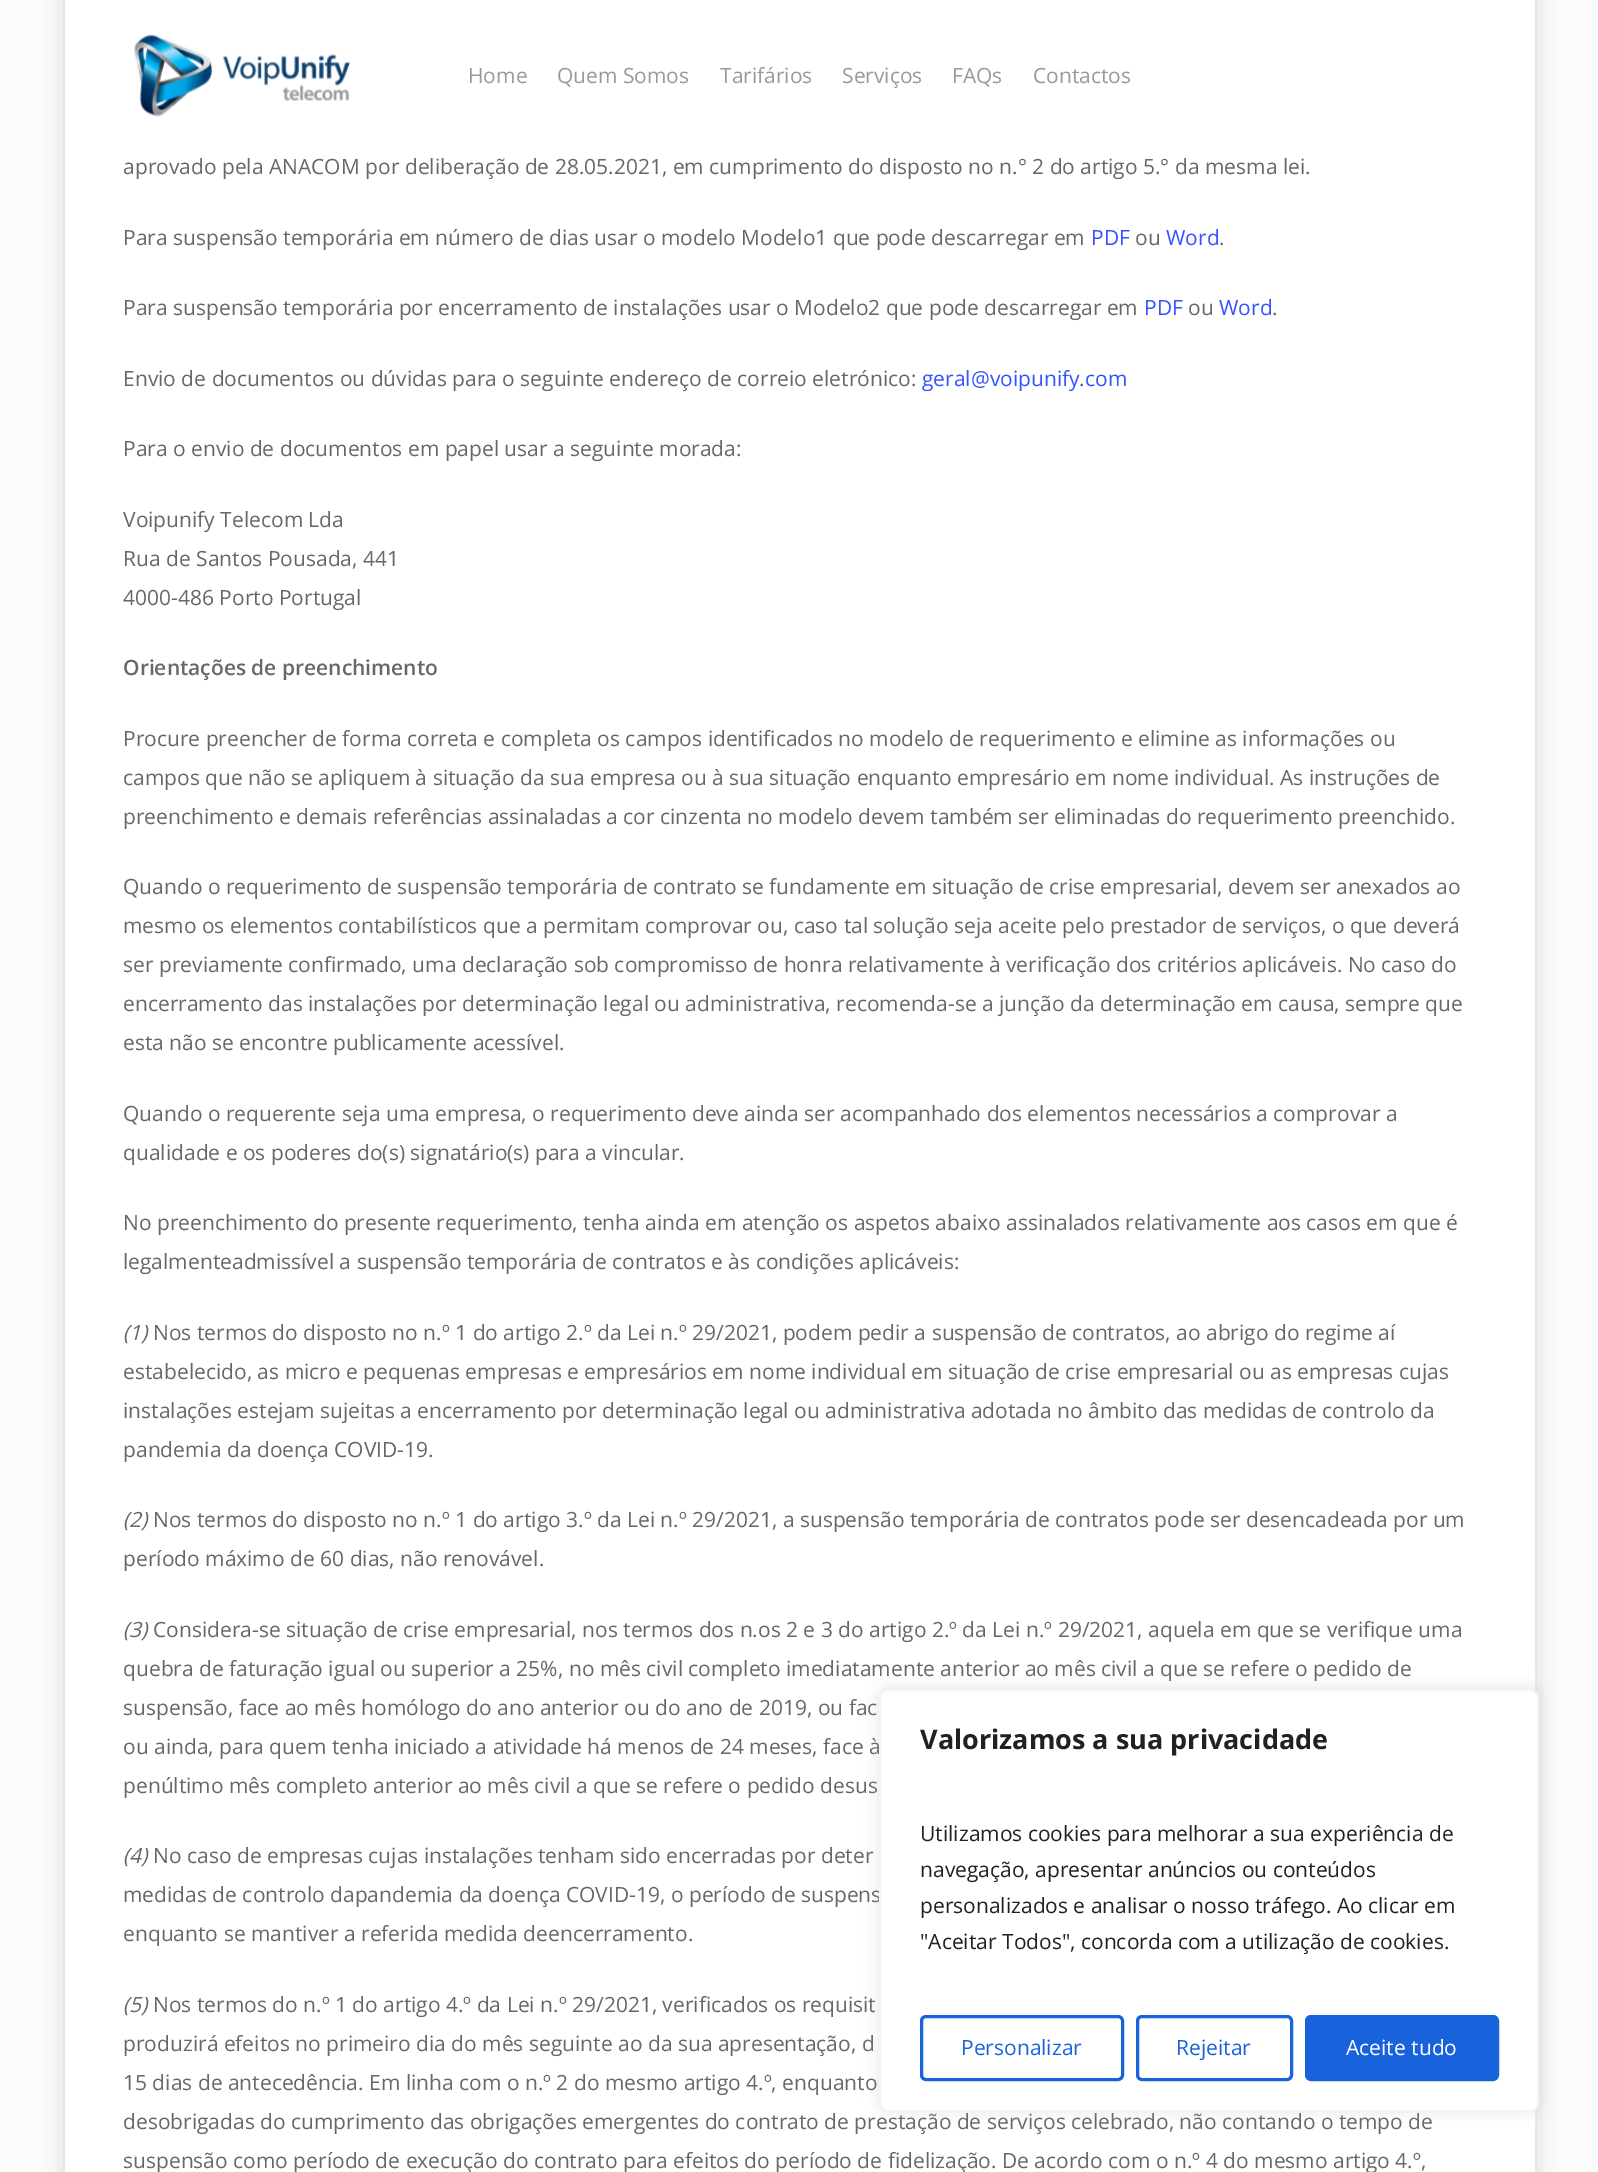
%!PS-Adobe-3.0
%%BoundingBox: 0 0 1598 2172
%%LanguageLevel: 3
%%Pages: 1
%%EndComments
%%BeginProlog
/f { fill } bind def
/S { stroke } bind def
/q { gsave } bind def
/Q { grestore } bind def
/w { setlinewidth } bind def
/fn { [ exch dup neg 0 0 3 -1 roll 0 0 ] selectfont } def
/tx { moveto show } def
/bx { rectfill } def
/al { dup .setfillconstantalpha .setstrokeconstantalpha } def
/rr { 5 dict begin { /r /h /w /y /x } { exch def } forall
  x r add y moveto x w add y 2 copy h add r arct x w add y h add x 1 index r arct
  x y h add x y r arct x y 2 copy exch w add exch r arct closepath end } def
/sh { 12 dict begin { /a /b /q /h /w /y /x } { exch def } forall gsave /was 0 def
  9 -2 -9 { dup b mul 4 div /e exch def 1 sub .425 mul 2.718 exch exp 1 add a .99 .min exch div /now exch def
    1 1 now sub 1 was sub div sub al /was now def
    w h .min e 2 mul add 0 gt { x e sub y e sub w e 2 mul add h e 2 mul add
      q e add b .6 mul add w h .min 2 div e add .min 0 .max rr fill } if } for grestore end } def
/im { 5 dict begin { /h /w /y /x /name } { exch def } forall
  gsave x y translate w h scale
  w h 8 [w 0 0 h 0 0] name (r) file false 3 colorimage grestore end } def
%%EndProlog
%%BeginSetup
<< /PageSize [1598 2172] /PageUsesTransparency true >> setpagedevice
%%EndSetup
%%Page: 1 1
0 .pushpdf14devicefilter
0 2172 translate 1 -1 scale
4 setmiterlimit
0.984 setgray
0 0 1598 2172 bx
0 setgray
65 -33 1470 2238 0 11 0.15 sh
1 setgray
65 0 1470 2172 bx
(image0.raw) 134 34 217 83 im
/OpenSans-Regular 21 fn
0.6 setgray
(Home) 468 83 tx
(Quem Somos) 557 83 tx
(Tarifários) 720 83 tx
(Serviços) 842 83 tx
(FAQs) 952 83 tx
(Contactos) 1033 83 tx
0.404 setgray
(aprovado pela ANACOM por deliberação de 28.05.2021, em cumprimento do disposto no n.° 2 do artigo 5.° da mesma lei.) 123 174 tx
(Para suspensão temporária em número de dias usar o modelo Modelo1 que pode descarregar em) 123 245 tx
0.204 0.322 1 setrgbcolor
(PDF) 1091 245 tx
0.404 setgray
(ou) 1135 245 tx
0.204 0.322 1 setrgbcolor
(Word) 1166 245 tx
0.404 setgray
(.) 1219 245 tx
(Para suspensão temporária por encerramento de instalações usar o Modelo2 que pode descarregar em) 123 315 tx
0.204 0.322 1 setrgbcolor
(PDF) 1144 315 tx
0.404 setgray
(ou) 1188 315 tx
0.204 0.322 1 setrgbcolor
(Word) 1219 315 tx
0.404 setgray
(.) 1272 315 tx
(Envio de documentos ou dúvidas para o seguinte endereço de correio eletrónico:) 123 386 tx
0.204 0.322 1 setrgbcolor
(geral@voipunify.com) 922 386 tx
0.404 setgray
(Para o envio de documentos em papel usar a seguinte morada:) 123 456 tx
(Voipunify Telecom Lda) 123 527 tx
(Rua de Santos Pousada, 441) 123 566 tx
(4000-486 Porto Portugal) 123 605 tx
/OpenSans-SemiBold 21 fn
(Orientações de preenchimento) 123 675 tx
/OpenSans-Regular 21 fn
(Procure preencher de forma correta e completa os campos identificados no modelo de requerimento e elimine as informações ou) 123 746 tx
(campos que não se apliquem à situação da sua empresa ou à sua situação enquanto empresário em nome individual. As instruções de) 123 785 tx
(preenchimento e demais referências assinaladas a cor cinzenta no modelo devem também ser eliminadas do requerimento preenchido.) 123 824 tx
(Quando o requerimento de suspensão temporária de contrato se fundamente em situação de crise empresarial, devem ser anexados ao) 123 894 tx
(mesmo os elementos contabilísticos que a permitam comprovar ou, caso tal solução seja aceite pelo prestador de serviços, o que deverá) 123 933 tx
(ser previamente confirmado, uma declaração sob compromisso de honra relativamente à verificação dos critérios aplicáveis. No caso do) 123 972 tx
(encerramento das instalações por determinação legal ou administrativa, recomenda-se a junção da determinação em causa, sempre que) 123 1011 tx
(esta não se encontre publicamente acessível.) 123 1050 tx
(Quando o requerente seja uma empresa, o requerimento deve ainda ser acompanhado dos elementos necessários a comprovar a) 123 1121 tx
(qualidade e os poderes do\(s\) signatário\(s\) para a vincular.) 123 1160 tx
(No preenchimento do presente requerimento, tenha ainda em atenção os aspetos abaixo assinalados relativamente aos casos em que é) 123 1230 tx
(legalmenteadmissível a suspensão temporária de contratos e às condições aplicáveis:) 123 1269 tx
/OpenSans-Italic 21 fn
(\(1\)) 123 1340 tx
/OpenSans-Regular 21 fn
(Nos termos do disposto no n.º 1 do artigo 2.º da Lei n.º 29/2021, podem pedir a suspensão de contratos, ao abrigo do regime aí) 153 1340 tx
(estabelecido, as micro e pequenas empresas e empresários em nome individual em situação de crise empresarial ou as empresas cujas) 123 1379 tx
(instalações estejam sujeitas a encerramento por determinação legal ou administrativa adotada no âmbito das medidas de controlo da) 123 1418 tx
(pandemia da doença COVID-19.) 123 1457 tx
/OpenSans-Italic 21 fn
(\(2\)) 123 1527 tx
/OpenSans-Regular 21 fn
(Nos termos do disposto no n.º 1 do artigo 3.º da Lei n.º 29/2021, a suspensão temporária de contratos pode ser desencadeada por um) 153 1527 tx
(período máximo de 60 dias, não renovável.) 123 1566 tx
/OpenSans-Italic 21 fn
(\(3\)) 123 1637 tx
/OpenSans-Regular 21 fn
(Considera-se situação de crise empresarial, nos termos dos n.os 2 e 3 do artigo 2.º da Lei n.º 29/2021, aquela em que se verifique uma) 153 1637 tx
(quebra de faturação igual ou superior a 25%, no mês civil completo imediatamente anterior ao mês civil a que se refere o pedido de) 123 1676 tx
(suspensão, face ao mês homólogo do ano anterior ou do ano de 2019, ou fac) 123 1715 tx
(ou ainda, para quem tenha iniciado a atividade há menos de 24 meses, face à) 123 1754 tx
(penúltimo mês completo anterior ao mês civil a que se refere o pedido desus) 123 1793 tx
/OpenSans-Italic 21 fn
(\(4\)) 123 1863 tx
/OpenSans-Regular 21 fn
(No caso de empresas cujas instalações tenham sido encerradas por deter) 153 1863 tx
(medidas de controlo dapandemia da doença COVID-19, o período de suspens) 123 1902 tx
(enquanto se mantiver a referida medida deencerramento.) 123 1941 tx
/OpenSans-Italic 21 fn
(\(5\)) 123 2012 tx
/OpenSans-Regular 21 fn
(Nos termos do n.º 1 do artigo 4.º da Lei n.º 29/2021, verificados os requisit) 153 2012 tx
(produzirá efeitos no primeiro dia do mês seguinte ao da sua apresentação, d) 123 2051 tx
(15 dias de antecedência. Em linha com o n.º 2 do mesmo artigo 4.º, enquanto) 123 2090 tx
(desobrigadas do cumprimento das obrigações emergentes do contrato de prestação de serviços celebrado, não contando o tempo de) 123 2129 tx
(suspensão como período de execução do contrato para efeitos do período de fidelização. De acordo com o n.º 4 do mesmo artigo 4.º,) 123 2168 tx
0.675 0.671 0.671 setrgbcolor
879 1688 660 423 9 7.5 0.3 sh
1 setgray
880 1690 658 421 8 rr q f Q
0.957 setgray
2 w
S
/OpenSans-Bold 27 fn
0.129 setgray
(Valorizamos a sua privacidade) 920 1749 tx
/OpenSans-Regular 21 fn
(Utilizamos cookies para melhorar a sua experiência de) 920 1841 tx
(navegação, apresentar anúncios ou conteúdos) 920 1877 tx
(personalizados e analisar o nosso tráfego. Ao clicar em) 920 1913 tx
("Aceitar Todos", concorda com a utilização de cookies.) 920 1949 tx
0.094 0.388 0.863 setrgbcolor
3 w
921.5 2016.5 201 63 4.5 rr S
(Personalizar) 961 2055 tx
1137.5 2016.5 154 63 4.5 rr S
(Rejeitar) 1176 2055 tx
1306.5 2016.5 191 63 4.5 rr q f Q
S
1 setgray
(Aceite tudo) 1346 2055 tx
.poppdf14devicefilter showpage
%%EOF
